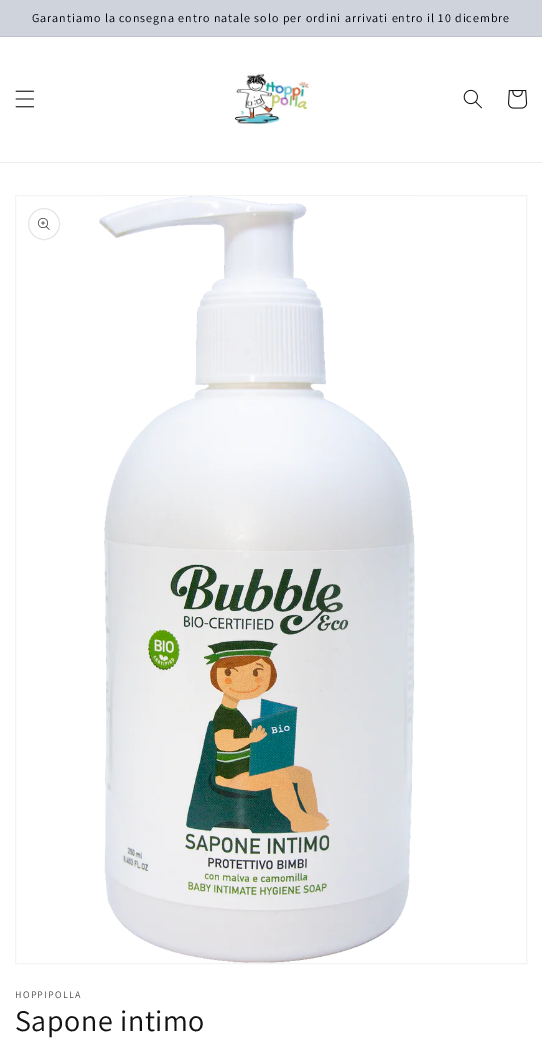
%!PS-Adobe-3.0
%%BoundingBox: 0 0 542 1056
%%LanguageLevel: 3
%%Pages: 1
%%EndComments
%%BeginProlog
/m { moveto } bind def
/S { stroke } bind def
/fn { [ exch dup neg 0 0 3 -1 roll 0 0 ] selectfont } def
/bx { rectfill } def
/ci { newpath 0 360 arc closepath } def
/im { 5 dict begin { /h /w /y /x /name } { exch def } forall
  gsave x y translate w h scale
  w h 8 [w 0 0 h 0 0] name (r) file false 3 colorimage grestore end } def
%%EndProlog
%%BeginSetup
<< /PageSize [542 1056] >> setpagedevice
%%EndSetup
%%Page: 1 1
0 1056 translate 1 -1 scale
4 setmiterlimit
1 setgray
0 0 542 1056 bx
0.812 0.827 0.863 setrgbcolor
0 0 542 36 bx
0.749 0.765 0.8 setrgbcolor
0 36 542 1 bx
/Assistant-Regular 12 fn
0.004 0.02 0.055 setrgbcolor
32 22 m 1 0 (Garantiamo la consegna entro natale solo per ordini arrivati entro il 10 dicembre) ashow
0.925 setgray
0 162 542 1 bx
(image0.raw) 15 90 20 18 im
(image1.raw) 234 73 75 53 im
(image2.raw) 463 89 19 20 im
(image3.raw) 508 90 20 19 im
0.953 setgray
15.5 195.5 511 768 rectstroke
(image4.raw) 99 196 316 767 im
0.906 setgray
44 224 15.5 ci S
(image5.raw) 38 218 12 12 im
/Assistant-Regular 10 fn
0.302 setgray
15 998 m 1.25 0 (HOPPIPOLLA) ashow
/Assistant-Regular 30 fn
0.071 setgray
15 1031 m 0.6 0 (Sapone intimo) ashow
showpage
%%EOF
